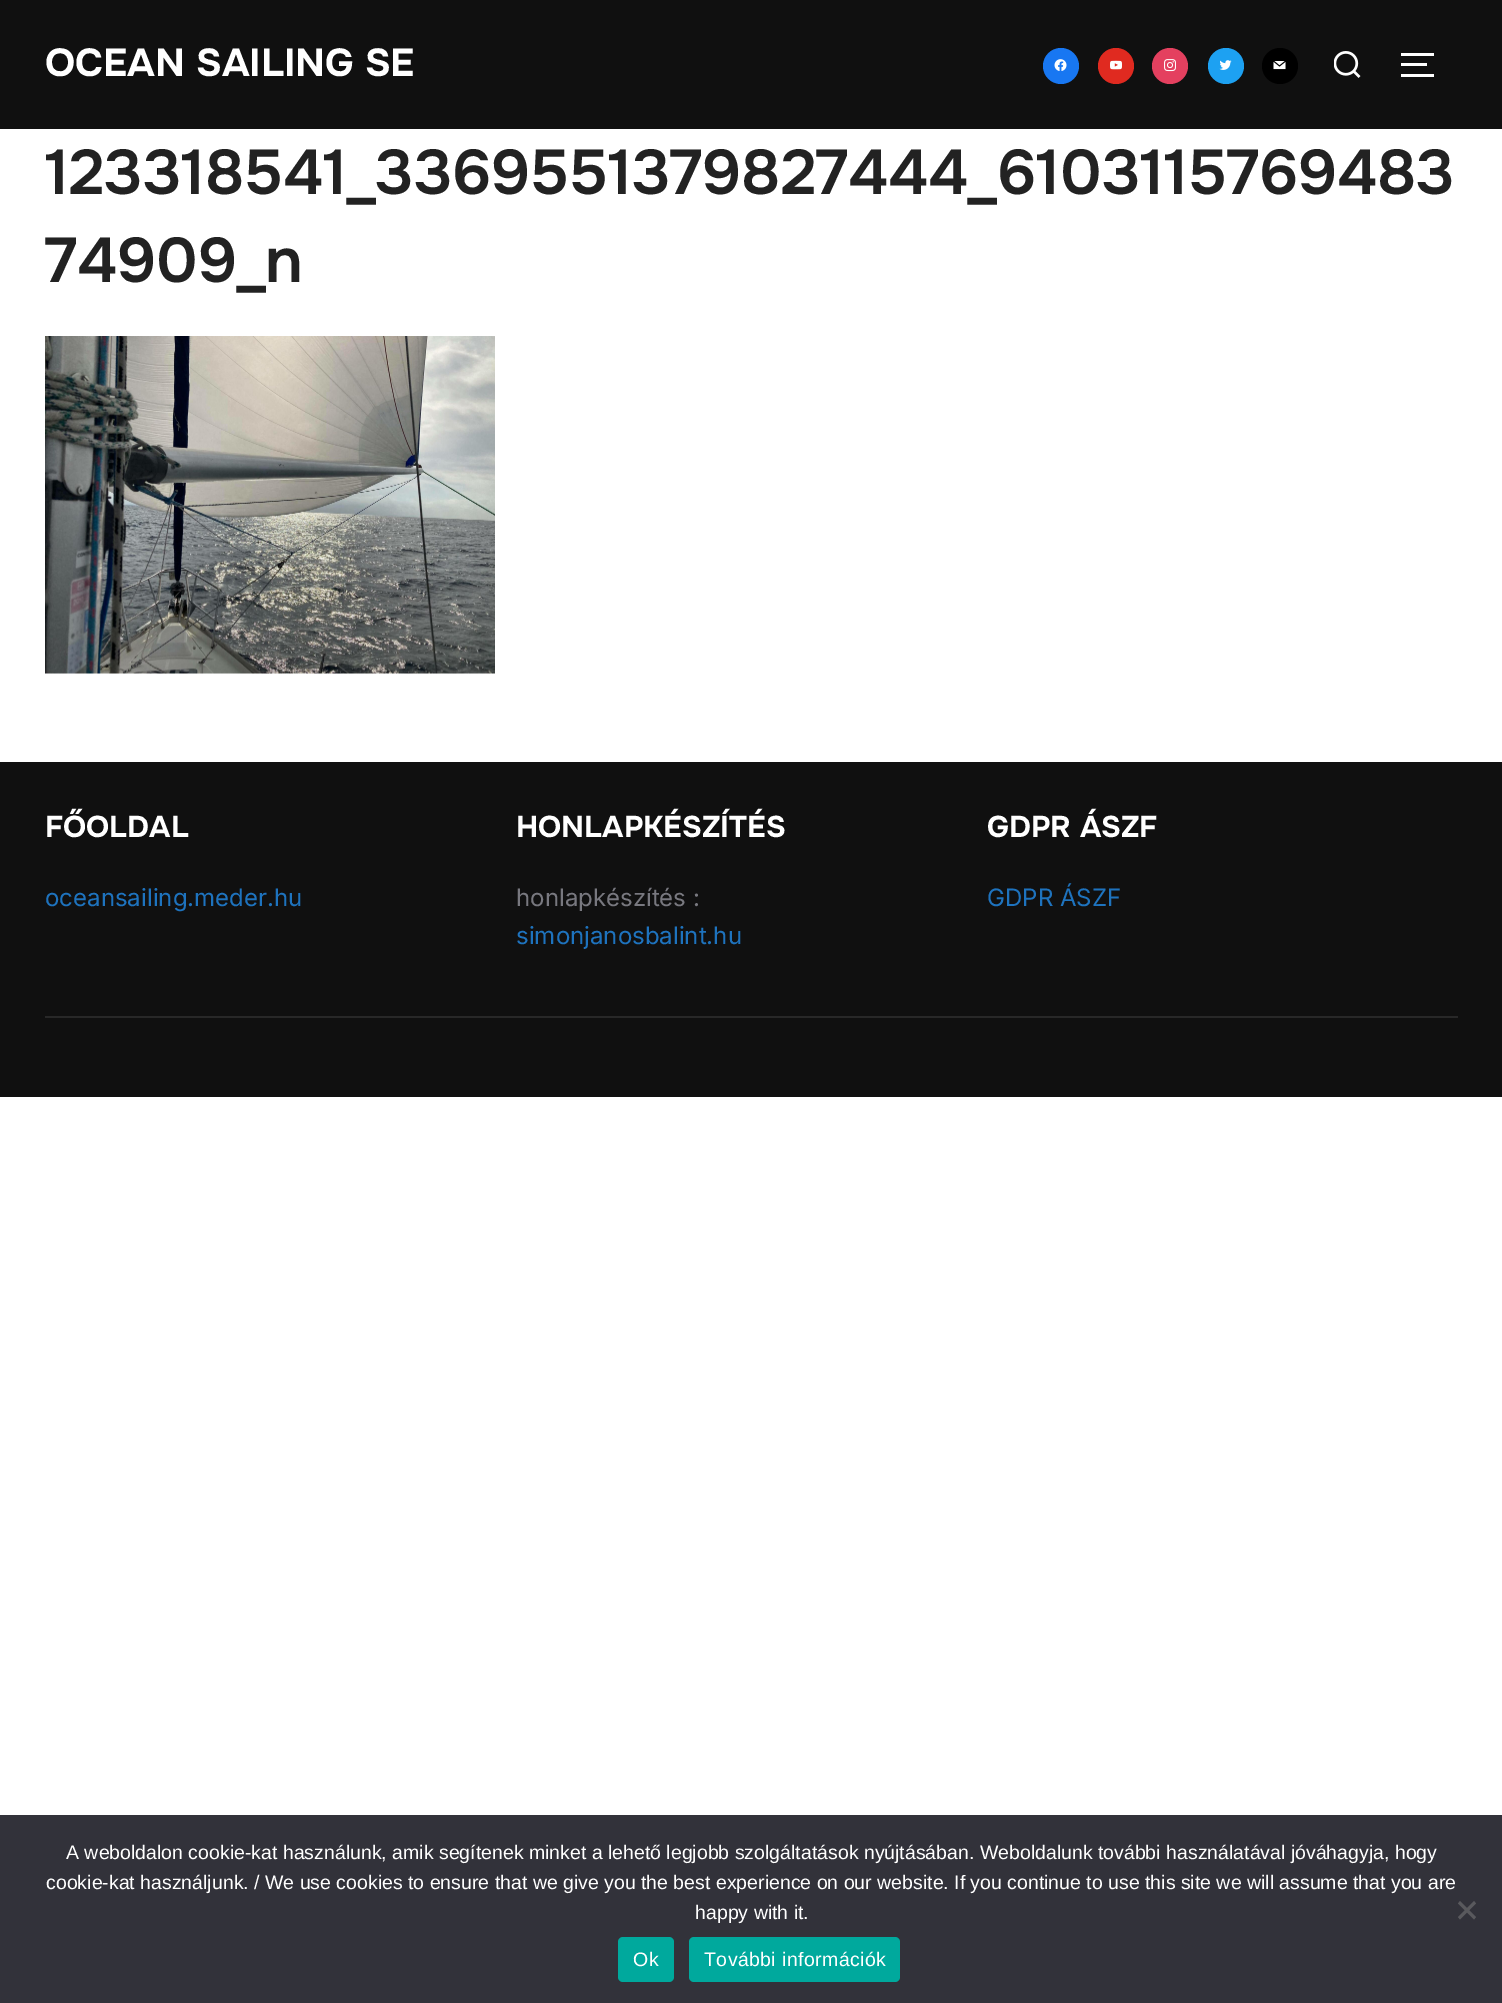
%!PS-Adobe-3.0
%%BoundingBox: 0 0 1502 2003
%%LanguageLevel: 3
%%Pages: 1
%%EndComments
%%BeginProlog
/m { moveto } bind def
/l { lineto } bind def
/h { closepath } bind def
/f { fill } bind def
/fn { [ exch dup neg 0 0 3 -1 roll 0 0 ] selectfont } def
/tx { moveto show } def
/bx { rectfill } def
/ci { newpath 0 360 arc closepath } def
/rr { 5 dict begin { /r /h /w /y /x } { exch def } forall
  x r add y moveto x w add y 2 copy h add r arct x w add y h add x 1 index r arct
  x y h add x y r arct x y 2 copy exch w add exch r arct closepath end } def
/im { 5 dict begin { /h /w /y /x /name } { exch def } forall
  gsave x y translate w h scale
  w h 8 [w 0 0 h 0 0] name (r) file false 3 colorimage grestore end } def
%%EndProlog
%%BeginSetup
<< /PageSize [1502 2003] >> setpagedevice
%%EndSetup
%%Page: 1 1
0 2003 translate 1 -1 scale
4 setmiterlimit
1 setgray
0 0 1502 2003 bx
0.063 setgray
0 0 1502 129 bx
/Onest-Bold 39 fn
1 setgray
(OCEAN SAILING SE) 45 76 tx
0.094 0.467 0.949 setrgbcolor
1061 66 18 ci f
(image0.raw) 1054 59 13 12 im
0.878 0.165 0.125 setrgbcolor
1116 66 18 ci f
(image1.raw) 1110 60 12 10 im
0.894 0.251 0.373 setrgbcolor
1170 66 18 ci f
(image2.raw) 1164 59 12 13 im
0.114 0.631 0.949 setrgbcolor
1226 66 18 ci f
(image3.raw) 1219 60 13 10 im
0 setgray
1280 66 18 ci f
(image4.raw) 1273 61 13 9 im
(image5.raw) 1334 51 27 27 im
1 setgray
1401 53 33 3 bx
1401 63 26 3 bx
1401 74 33 3 bx
/Onest-SemiBold 63 fn
0.133 setgray
(123318541_3369551379827444_6103115769483) 45 194 tx
(74909_n) 45 282 tx
(image6.raw) 45 336 450 338 im
0.063 setgray
0 762 1502 335 bx
/Onest-Bold 30 fn
1 setgray
(FŐOLDAL) 45 837 tx
/Inter-Regular 24 fn
0.118 0.451 0.745 setrgbcolor
(oceansailing.meder.hu) 45 906 tx
/Onest-Bold 30 fn
1 setgray
(HONLAPKÉSZÍTÉS) 516 837 tx
/Inter-Regular 24 fn
0.471 0.471 0.498 setrgbcolor
(honlapkészítés :) 516 906 tx
0.118 0.451 0.745 setrgbcolor
(simonjanosbalint.hu) 516 944 tx
/Onest-Bold 30 fn
1 setgray
(GDPR ÁSZF) 987 837 tx
/Inter-Regular 24 fn
0.118 0.451 0.745 setrgbcolor
(GDPR ÁSZF) 987 906 tx
0.157 setgray
45 1016 1413 2 bx
0.196 0.196 0.227 setrgbcolor
0 1815 1502 188 bx
/LiberationSans-Regular 19.5 fn
1 setgray
(A weboldalon cookie-kat használunk, amik segítenek minket a lehető legjobb szolgáltatások nyújtásában. Weboldalunk további használatával jóváhagyja, hogy) 66 1859 tx
(cookie-kat használjunk. / We use cookies to ensure that we give you the best experience on our website. If you continue to use this site we will assume that you are) 46 1889 tx
(happy with it.) 695 1919 tx
0.349 0.349 0.365 setrgbcolor
1474 1901 m 1476 1903.5 l 1460 1919.5 l 1458 1917 l h f
1458 1903.5 m 1460 1901 l 1476 1917 l 1474 1919.5 l h f
0 0.663 0.616 setrgbcolor
618 1937 56 45 5 rr f
1 setgray
633 1966 m 0.4 0 (Ok) ashow
0 0.663 0.616 setrgbcolor
689 1937 211 45 5 rr f
1 setgray
704 1966 m 0.4 0 (További információk) ashow
showpage
%%EOF
